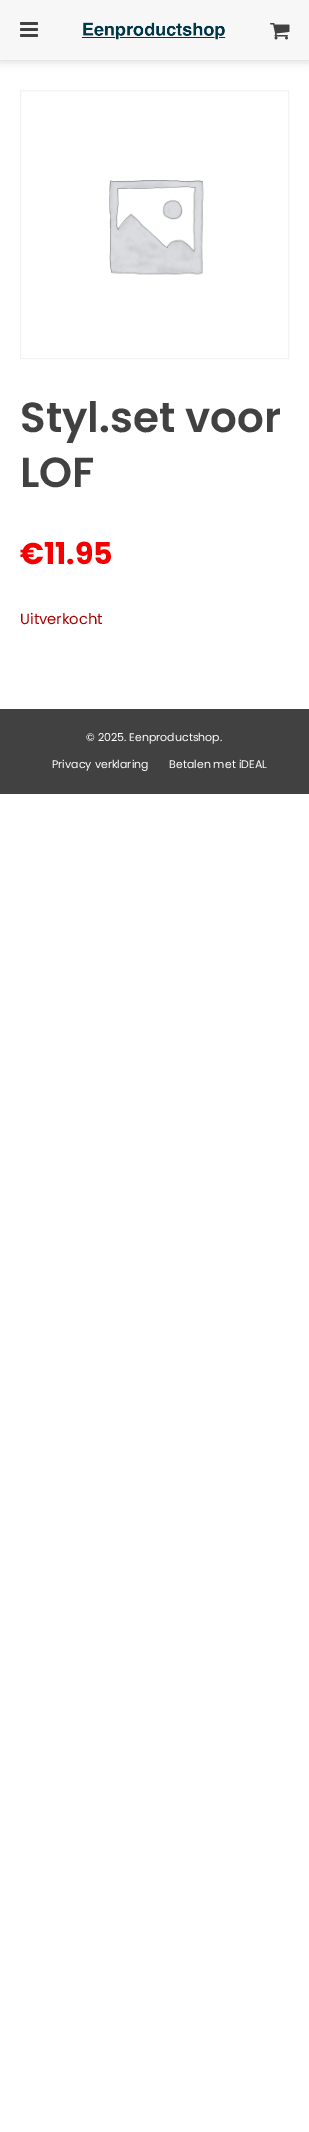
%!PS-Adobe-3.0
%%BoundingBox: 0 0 309 2132
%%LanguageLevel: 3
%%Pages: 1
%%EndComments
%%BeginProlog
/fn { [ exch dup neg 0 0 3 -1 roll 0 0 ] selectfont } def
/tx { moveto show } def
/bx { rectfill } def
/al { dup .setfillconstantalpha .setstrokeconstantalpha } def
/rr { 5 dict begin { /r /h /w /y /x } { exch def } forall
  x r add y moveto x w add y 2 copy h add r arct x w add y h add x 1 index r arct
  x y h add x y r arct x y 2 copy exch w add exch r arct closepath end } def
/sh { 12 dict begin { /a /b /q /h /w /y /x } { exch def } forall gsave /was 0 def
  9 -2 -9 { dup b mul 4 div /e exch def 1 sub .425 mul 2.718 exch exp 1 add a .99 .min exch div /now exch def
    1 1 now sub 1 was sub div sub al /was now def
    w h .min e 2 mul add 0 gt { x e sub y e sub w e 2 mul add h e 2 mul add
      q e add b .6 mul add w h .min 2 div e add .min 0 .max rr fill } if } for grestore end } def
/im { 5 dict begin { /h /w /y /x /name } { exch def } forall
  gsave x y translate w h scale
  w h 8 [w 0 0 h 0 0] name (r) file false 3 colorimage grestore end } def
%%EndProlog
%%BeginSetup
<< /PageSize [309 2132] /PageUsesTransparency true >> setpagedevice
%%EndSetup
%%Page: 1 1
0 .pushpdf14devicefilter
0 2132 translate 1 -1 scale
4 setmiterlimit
1 setgray
0 0 309 2132 bx
0 setgray
0 0 309 60 0 5 0.2 sh
0.969 setgray
0 0 309 60 bx
(image0.raw) 20 22 18 15 im
(image1.raw) 81 22 145 18 im
(image2.raw) 270 23 20 17 im
0.949 setgray
20.5 90.5 268 268 rectstroke
(image3.raw) 109 180 95 95 im
/Poppins-SemiBold 42 fn
0.255 setgray
(Styl.set voor) 20 432 tx
(LOF) 20 487 tx
/Poppins-Bold 30 fn
0.961 0 0 setrgbcolor
(€11.95) 20 564 tx
/Poppins-Regular 14.75 fn
0.667 0 0 setrgbcolor
(Uitverkocht) 20 624 tx
0.255 setgray
0 709 309 85 bx
/Poppins-Regular 11 fn
1 setgray
(© 2025. Eenproductshop.) 86 741 tx
(Privacy verklaring) 52 768 tx
(Betalen met iDEAL) 169 768 tx
.poppdf14devicefilter showpage
%%EOF
